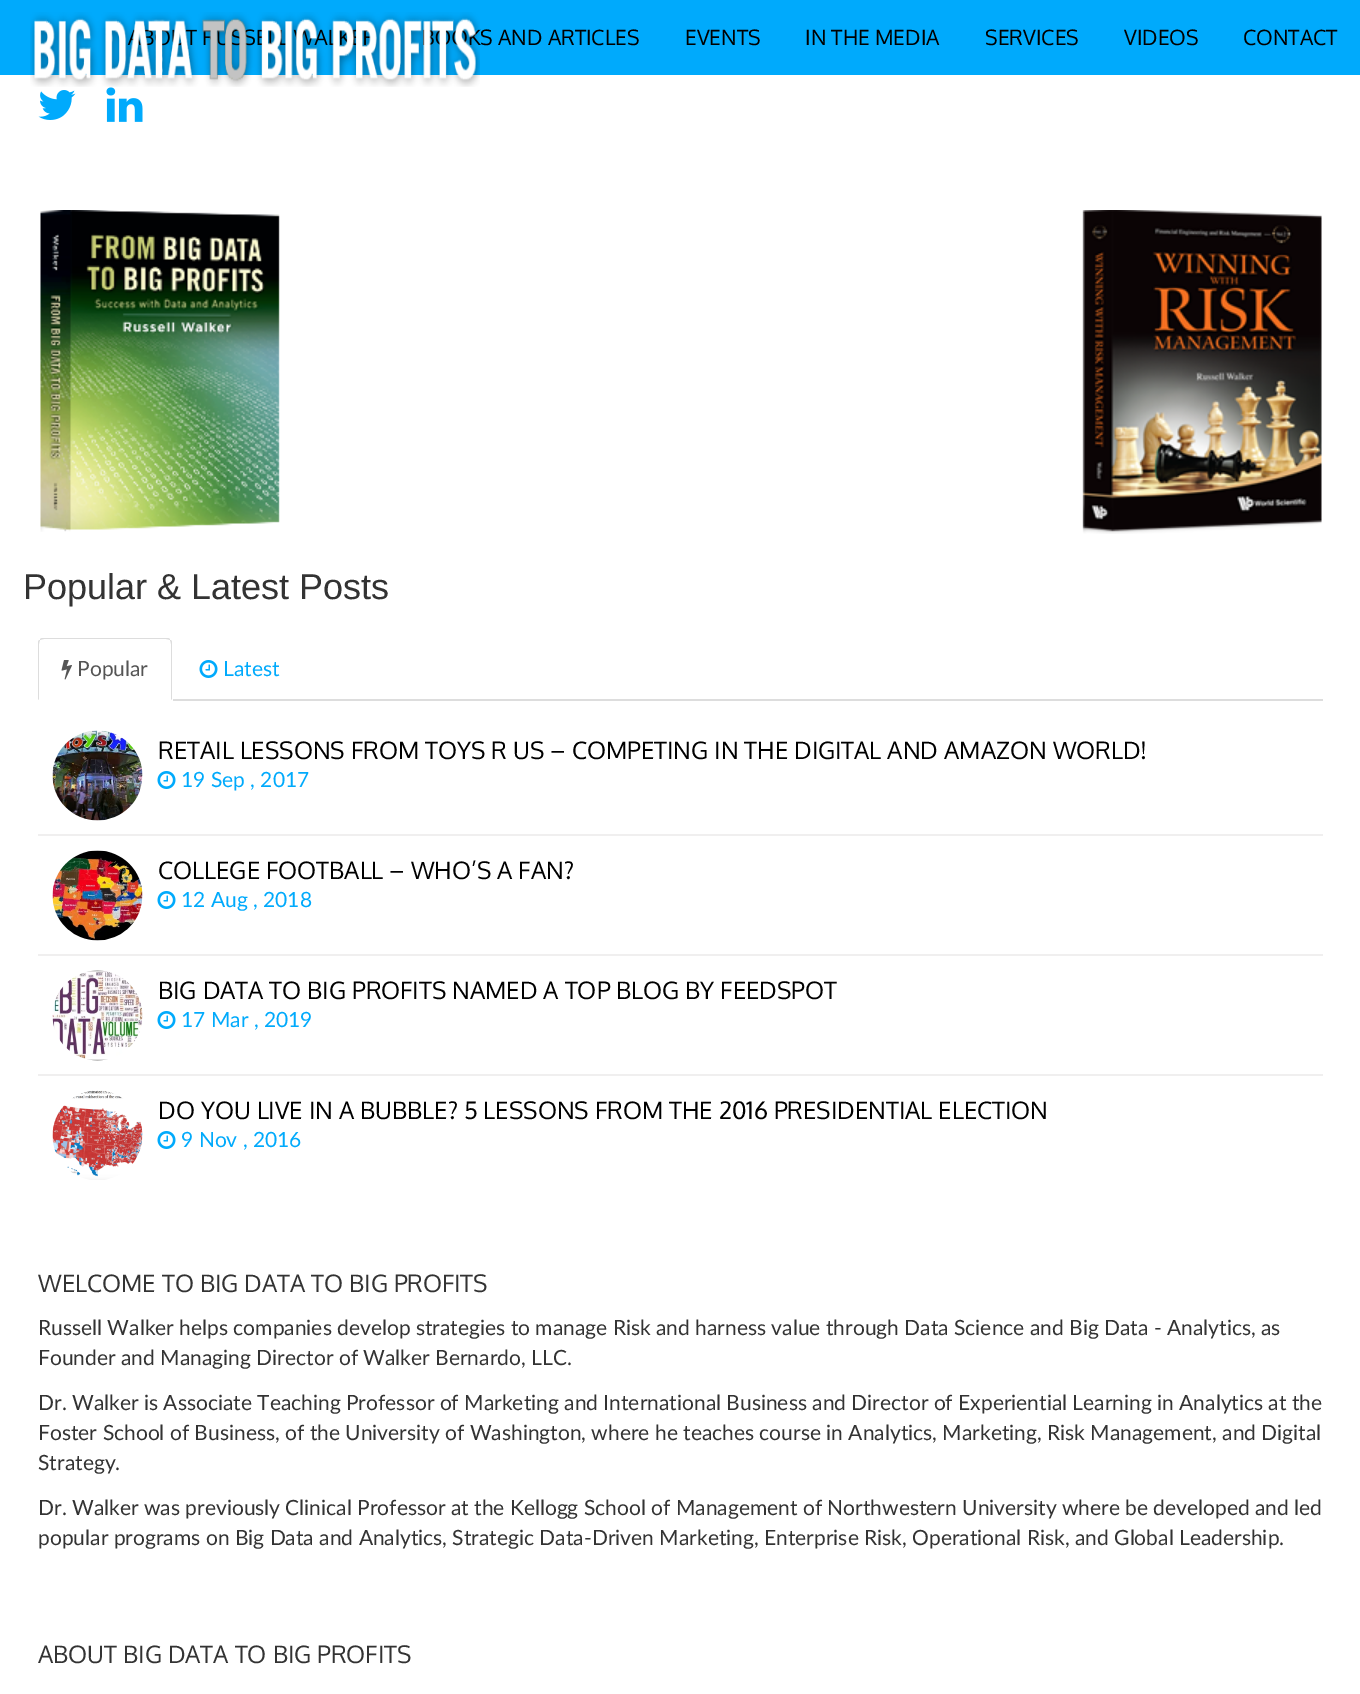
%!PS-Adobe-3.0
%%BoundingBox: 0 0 1360 1694
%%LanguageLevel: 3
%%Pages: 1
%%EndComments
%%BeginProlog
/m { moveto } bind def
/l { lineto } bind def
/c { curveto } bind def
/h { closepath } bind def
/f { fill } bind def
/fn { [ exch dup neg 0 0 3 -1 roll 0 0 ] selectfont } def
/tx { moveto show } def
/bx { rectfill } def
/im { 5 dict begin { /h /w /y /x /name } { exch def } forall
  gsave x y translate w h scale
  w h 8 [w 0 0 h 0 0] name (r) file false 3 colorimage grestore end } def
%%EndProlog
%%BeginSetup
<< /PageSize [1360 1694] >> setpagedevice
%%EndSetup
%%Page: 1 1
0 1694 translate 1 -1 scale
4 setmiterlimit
1 setgray
0 0 1360 1694 bx
0 0.667 0.988 setrgbcolor
0 0 1360 75 bx
/Oxygen-Regular 21 fn
0 setgray
(T) 186 45 tx
(A) 314 45 tx
(BOOKS AND ARTICLES) 421 45 tx
(image0.raw) 30 12 450 75 im
(EVENTS) 685 45 tx
(IN THE MEDIA) 805 45 tx
(SERVICES) 985 45 tx
(VIDEOS) 1124 45 tx
(CONTACT) 1243 45 tx
(image1.raw) 38 90 38 30 im
(image2.raw) 106 87 37 35 im
(image3.raw) 40 210 240 322 im
(image4.raw) 1082 210 240 324 im
/LiberationSans-Regular 36 fn
0.2 setgray
(Popular & Latest Posts) 23 599 tx
0.867 setgray
173 699 1150 2 bx
44 638 m 42 638 40 638 40 640 c 41 640 42 639 44 639 c 166 639 l 168 639 169 640 170 640 c 170 638 168 638 166 638 c h f
172 700 m 172 644 l 172 642 172 640 170 640 c 170 641 171 642 171 644 c 171 699 l h f
40 640 m 38 640 38 642 38 644 c 38 700 l 39 699 l 39 644 l 39 642 40 641 40 640 c h f
(image5.raw) 61 660 11 20 im
/Lato-Regular 21 fn
0.333 setgray
(Popular) 77 676 tx
(image6.raw) 199 660 19 18 im
0 0.667 0.988 setrgbcolor
(Latest) 223 676 tx
0.941 0.937 0.937 setrgbcolor
38 834 1285 2 bx
(image7.raw) 52 730 91 91 im
/Oxygen-Regular 24 fn
0 setgray
(RETAIL LESSONS FROM TOYS R US – COMPETING IN THE DIGITAL AND AMAZON WORLD!) 158 759 tx
(image6.raw) 157 771 19 18 im
/Lato-Regular 21 fn
0 0.667 0.988 setrgbcolor
(19 Sep , 2017) 181 787 tx
0.941 0.937 0.937 setrgbcolor
38 954 1285 2 bx
(image8.raw) 52 850 91 91 im
/Oxygen-Regular 24 fn
0 setgray
(COLLEGE FOOTBALL – WHO’S A FAN?) 158 879 tx
(image6.raw) 157 891 19 18 im
/Lato-Regular 21 fn
0 0.667 0.988 setrgbcolor
(12 Aug , 2018) 181 907 tx
0.941 0.937 0.937 setrgbcolor
38 1074 1285 2 bx
(image9.raw) 52 970 91 91 im
/Oxygen-Regular 24 fn
0 setgray
(BIG DATA TO BIG PROFITS NAMED A TOP BLOG BY FEEDSPOT) 158 999 tx
(image6.raw) 157 1011 19 18 im
/Lato-Regular 21 fn
0 0.667 0.988 setrgbcolor
(17 Mar , 2019) 181 1027 tx
(image10.raw) 52 1090 91 90 im
/Oxygen-Regular 24 fn
0 setgray
(DO YOU LIVE IN A BUBBLE? 5 LESSONS FROM THE 2016 PRESIDENTIAL ELECTION) 158 1119 tx
(image6.raw) 157 1131 19 18 im
/Lato-Regular 21 fn
0 0.667 0.988 setrgbcolor
(9 Nov , 2016) 181 1147 tx
/Oxygen-Regular 24 fn
0.2 setgray
(WELCOME TO BIG DATA TO BIG PROFITS) 38 1292 tx
/Lato-Regular 21 fn
(Russell Walker helps companies develop strategies to manage Risk and harness value through Data Science and Big Data - Analytics, as) 38 1335 tx
(Founder and Managing Director of Walker Bernardo, LLC.) 38 1365 tx
(Dr. Walker is Associate Teaching Professor of Marketing and International Business and Director of Experiential Learning in Analytics at the) 38 1410 tx
(Foster School of Business, of the University of Washington, where he teaches course in Analytics, Marketing, Risk Management, and Digital) 38 1440 tx
(Strategy.) 38 1470 tx
(Dr. Walker was previously Clinical Professor at the Kellogg School of Management of Northwestern University where be developed and led) 38 1515 tx
(popular programs on Big Data and Analytics, Strategic Data-Driven Marketing, Enterprise Risk, Operational Risk, and Global Leadership.) 38 1545 tx
/Oxygen-Regular 24 fn
(ABOUT BIG DATA TO BIG PROFITS) 38 1663 tx
showpage
%%EOF
